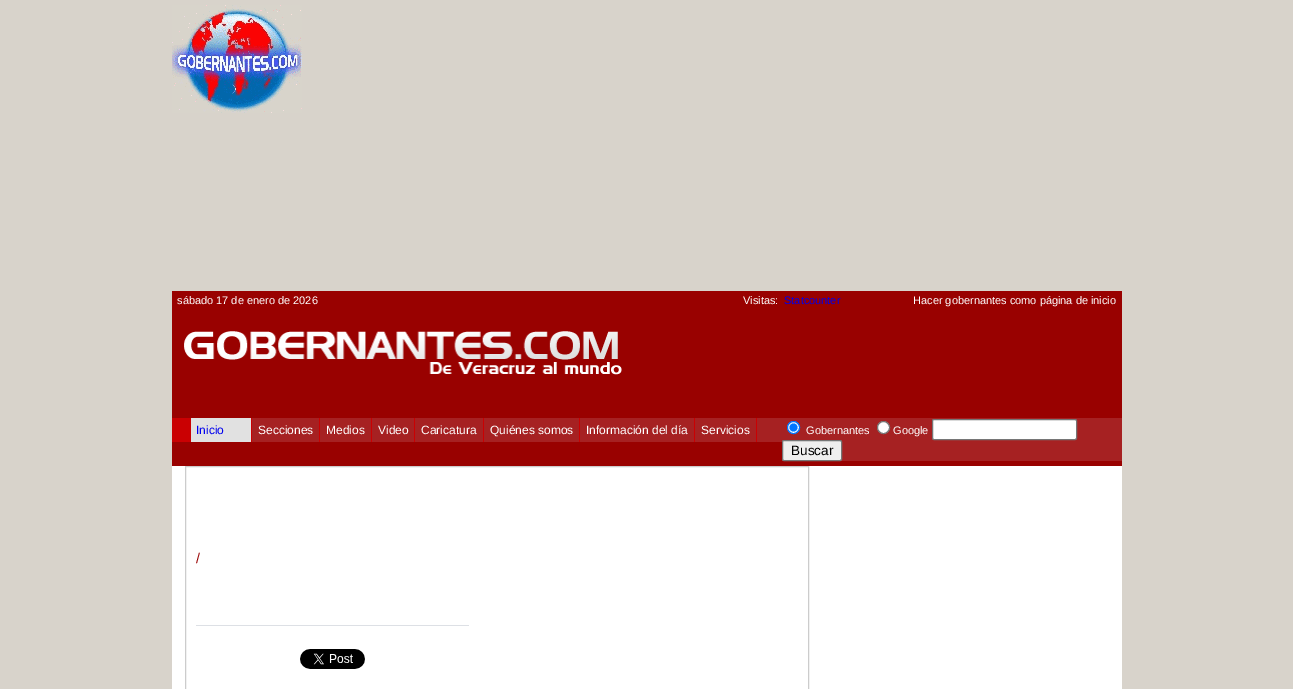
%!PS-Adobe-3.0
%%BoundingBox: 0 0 1293 689
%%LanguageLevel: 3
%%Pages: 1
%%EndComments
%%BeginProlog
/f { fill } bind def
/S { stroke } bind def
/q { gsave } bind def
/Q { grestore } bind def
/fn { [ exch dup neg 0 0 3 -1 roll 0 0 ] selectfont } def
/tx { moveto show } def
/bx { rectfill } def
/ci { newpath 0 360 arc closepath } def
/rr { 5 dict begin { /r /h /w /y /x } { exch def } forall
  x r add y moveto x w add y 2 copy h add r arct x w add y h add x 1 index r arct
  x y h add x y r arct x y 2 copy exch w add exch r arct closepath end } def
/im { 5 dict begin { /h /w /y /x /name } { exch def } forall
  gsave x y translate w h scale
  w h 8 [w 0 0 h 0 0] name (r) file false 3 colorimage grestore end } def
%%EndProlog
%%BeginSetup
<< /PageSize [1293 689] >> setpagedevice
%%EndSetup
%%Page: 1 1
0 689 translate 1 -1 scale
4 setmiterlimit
0.847 0.827 0.796 setrgbcolor
0 0 1293 689 bx
(image0.raw) 172 5 130 108 im
0.6 0.004 0 setrgbcolor
172 291 950 175 bx
/LiberationSans-Regular 11 fn
1 setgray
(sábado 17 de enero de 2026) 177 304 tx
(Visitas:) 743 304 tx
0 0 0.933 setrgbcolor
(Statcounter) 784 304 tx
1 setgray
(Hacer gobernantes como página de inicio) 913 304 tx
(image1.raw) 184 331 438 44 im
0.792 0 0.008 setrgbcolor
172 418 80 24 bx
0.882 setgray
191 418 60 24 bx
/LiberationSans-Regular 12 fn
0 0 0.933 setrgbcolor
(Inicio) 196 434 tx
0.651 0.129 0.133 setrgbcolor
252 418 530 24 bx
0.792 0 0.008 setrgbcolor
319 418 1 24 bx
1 setgray
(Secciones) 258 434 tx
0.792 0 0.008 setrgbcolor
371 418 1 24 bx
1 setgray
(Medios) 326 434 tx
0.792 0 0.008 setrgbcolor
414 418 1 24 bx
1 setgray
(Video) 378 434 tx
0.792 0 0.008 setrgbcolor
483 418 1 24 bx
1 setgray
(Caricatura) 421 434 tx
0.792 0 0.008 setrgbcolor
579 418 1 24 bx
1 setgray
(Quiénes somos) 490 434 tx
0.792 0 0.008 setrgbcolor
694 418 1 24 bx
1 setgray
(Información del día) 586 434 tx
0.792 0 0.008 setrgbcolor
756 418 1 24 bx
1 setgray
(Servicios) 701 434 tx
0.651 0.129 0.133 setrgbcolor
782 418 340 43 bx
1 setgray
793.5 427.5 6 ci q f Q
0 0.459 1 setrgbcolor
S
793.5 427.5 4 ci f
/LiberationSans-Regular 11 fn
1 setgray
(Gobernantes) 806 434 tx
883.5 427.5 6 ci q f Q
0.463 setgray
S
1 setgray
(Google) 893 434 tx
932.5 419.5 144 20 1.5 rr q f Q
0.463 setgray
S
0.937 setgray
782.5 440.5 59 20 1.5 rr q f Q
0.463 setgray
S
/LiberationSans-Regular 13.5 fn
0 setgray
(Buscar) 791 455 tx
1 setgray
172 466 950 223 bx
0.8 setgray
185.5 466.5 623 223 rectstroke
/LiberationSans-Regular 14 fn
0.6 0 0 setrgbcolor
(/) 196 563 tx
0.867 0.878 0.898 setrgbcolor
196 625 273 1 bx
(image2.raw) 300 649 65 20 im
showpage
%%EOF
